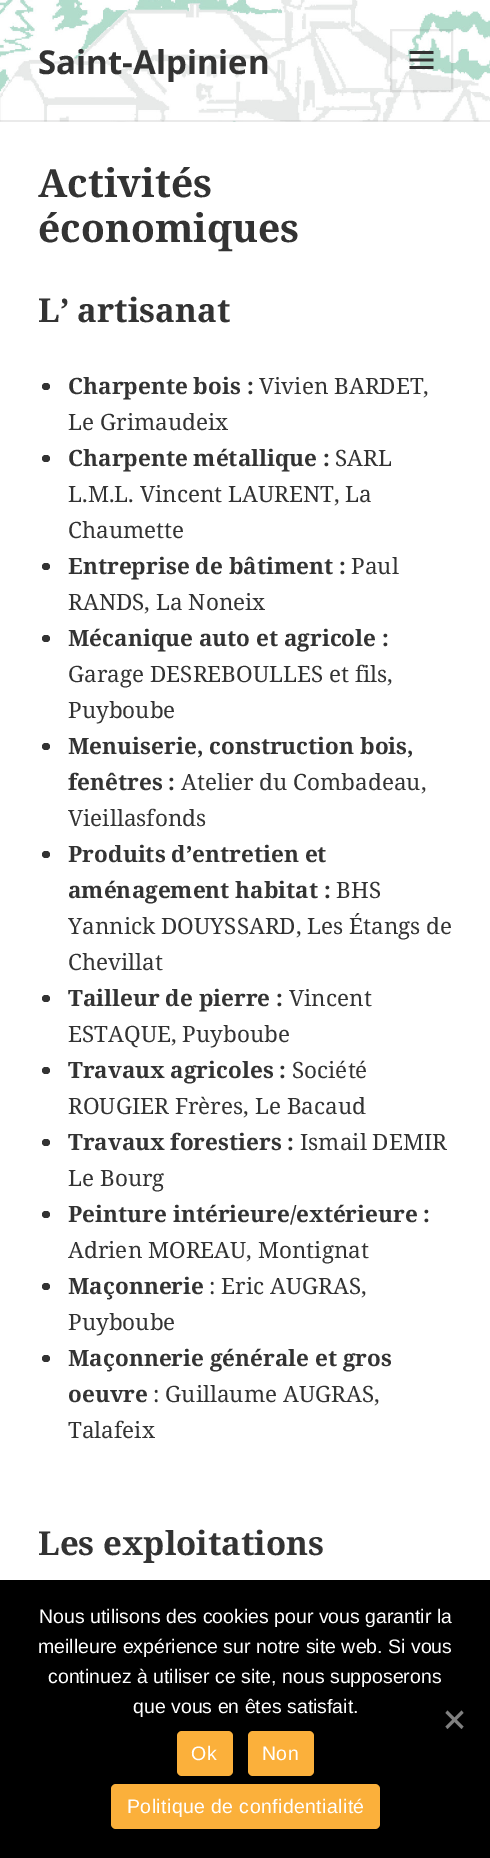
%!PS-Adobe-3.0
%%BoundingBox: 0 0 490 1858
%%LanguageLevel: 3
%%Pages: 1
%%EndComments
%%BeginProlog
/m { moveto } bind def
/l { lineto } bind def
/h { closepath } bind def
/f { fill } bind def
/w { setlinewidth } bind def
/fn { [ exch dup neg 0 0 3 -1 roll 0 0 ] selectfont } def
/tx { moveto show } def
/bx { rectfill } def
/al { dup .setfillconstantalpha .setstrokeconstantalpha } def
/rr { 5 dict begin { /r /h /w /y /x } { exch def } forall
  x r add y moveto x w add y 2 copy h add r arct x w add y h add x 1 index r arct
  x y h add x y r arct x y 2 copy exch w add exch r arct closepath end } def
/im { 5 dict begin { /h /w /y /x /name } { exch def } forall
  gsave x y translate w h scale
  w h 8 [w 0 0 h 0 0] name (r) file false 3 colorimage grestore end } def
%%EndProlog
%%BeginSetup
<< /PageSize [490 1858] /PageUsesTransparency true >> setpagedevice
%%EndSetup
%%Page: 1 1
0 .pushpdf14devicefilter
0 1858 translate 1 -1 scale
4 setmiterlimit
1 setgray
0 0 490 1858 bx
(image0.raw) 0 0 490 122 im
0.1 al
0.2 setgray
0 120 490 2 bx
/NotoSans-Bold 33 fn
1 al
(Saint-Alpinien) 38 74 tx
0.1 al
2 w
391 30 61 61 rectstroke
1 al
(image1.raw) 409 51 25 18 im
/NotoSerif-Bold 39 fn
(Activités) 38 197 tx
(économiques) 38 242 tx
/NotoSerif-Bold 33 fn
(L’ artisanat) 38 322 tx
42 383 8 7 3.5 rr f
/NotoSerif-Bold 22.5 fn
(Charpente bois :) 68 394 tx
/NotoSerif-Regular 22.5 fn
(Vivien BARDET,) 259 394 tx
(Le Grimaudeix) 68 430 tx
42 455 8 7 3.5 rr f
/NotoSerif-Bold 22.5 fn
(Charpente métallique :) 68 466 tx
/NotoSerif-Regular 22.5 fn
(SARL) 335 466 tx
(L.M.L. Vincent LAURENT, La) 68 502 tx
(Chaumette) 68 538 tx
42 563 8 7 3.5 rr f
/NotoSerif-Bold 22.5 fn
(Entreprise de bâtiment :) 68 574 tx
/NotoSerif-Regular 22.5 fn
(Paul) 351 574 tx
(RANDS, La Noneix) 68 610 tx
42 635 8 7 3.5 rr f
/NotoSerif-Bold 22.5 fn
(Mécanique auto et agricole :) 68 646 tx
/NotoSerif-Regular 22.5 fn
(Garage DESREBOULLES et fils,) 68 682 tx
(Puyboube) 68 718 tx
42 743 8 7 3.5 rr f
/NotoSerif-Bold 22.5 fn
(Menuiserie, construction bois,) 68 754 tx
(fenêtres :) 68 790 tx
/NotoSerif-Regular 22.5 fn
(Atelier du Combadeau,) 181 790 tx
(Vieillasfonds) 68 826 tx
42 851 8 7 3.5 rr f
/NotoSerif-Bold 22.5 fn
(Produits d’entretien et) 68 862 tx
(aménagement habitat :) 68 898 tx
/NotoSerif-Regular 22.5 fn
(BHS) 336 898 tx
(Yannick DOUYSSARD, Les Étangs de) 68 934 tx
(Chevillat) 68 970 tx
42 995 8 7 3.5 rr f
/NotoSerif-Bold 22.5 fn
(Tailleur de pierre :) 68 1006 tx
/NotoSerif-Regular 22.5 fn
(Vincent) 289 1006 tx
(ESTAQUE, Puyboube) 68 1042 tx
42 1067 8 7 3.5 rr f
/NotoSerif-Bold 22.5 fn
(Travaux agricoles :) 68 1078 tx
/NotoSerif-Regular 22.5 fn
(Société) 292 1078 tx
(ROUGIER Frères, Le Bacaud) 68 1114 tx
42 1139 8 7 3.5 rr f
/NotoSerif-Bold 22.5 fn
(Travaux forestiers :) 68 1150 tx
/NotoSerif-Regular 22.5 fn
(Ismail DEMIR) 300 1150 tx
(Le Bourg) 68 1186 tx
42 1211 8 7 3.5 rr f
/NotoSerif-Bold 22.5 fn
(Peinture intérieure/extérieure :) 68 1222 tx
/NotoSerif-Regular 22.5 fn
(Adrien MOREAU, Montignat) 68 1258 tx
42 1283 8 7 3.5 rr f
/NotoSerif-Bold 22.5 fn
(Maçonnerie) 68 1294 tx
/NotoSerif-Regular 22.5 fn
(: Eric AUGRAS,) 209 1294 tx
(Puyboube) 68 1330 tx
42 1355 8 7 3.5 rr f
/NotoSerif-Bold 22.5 fn
(Maçonnerie générale et gros) 68 1366 tx
(oeuvre) 68 1402 tx
/NotoSerif-Regular 22.5 fn
(: Guillaume AUGRAS,) 153 1402 tx
(Talafeix) 68 1438 tx
/NotoSerif-Bold 33 fn
(Les exploitations) 38 1555 tx
0 setgray
0 1580 490 278 bx
/LiberationSans-Regular 19.5 fn
1 setgray
(Nous utilisons des cookies pour vous garantir la) 39 1623 tx
(meilleure expérience sur notre site web. Si vous) 38 1653 tx
(continuez à utiliser ce site, nous supposerons) 48 1683 tx
(que vous en êtes satisfait.) 133 1713 tx
0.502 setgray
461.5 1710.5 m 463.5 1713 l 447.5 1729 l 445.5 1726.5 l h f
445.5 1713 m 447.5 1710.5 l 463.5 1726.5 l 461.5 1729 l h f
0.984 0.69 0.231 setrgbcolor
177 1731 56 45 5 rr f
1 setgray
191 1760 m 0.4 0 (Ok) ashow
0.984 0.69 0.231 setrgbcolor
248 1731 66 45 5 rr f
1 setgray
262 1760 m 0.4 0 (Non) ashow
0.984 0.69 0.231 setrgbcolor
111 1784 269 45 5 rr f
1 setgray
127 1813 m 0.4 0 (Politique de confidentialité) ashow
.poppdf14devicefilter showpage
%%EOF
